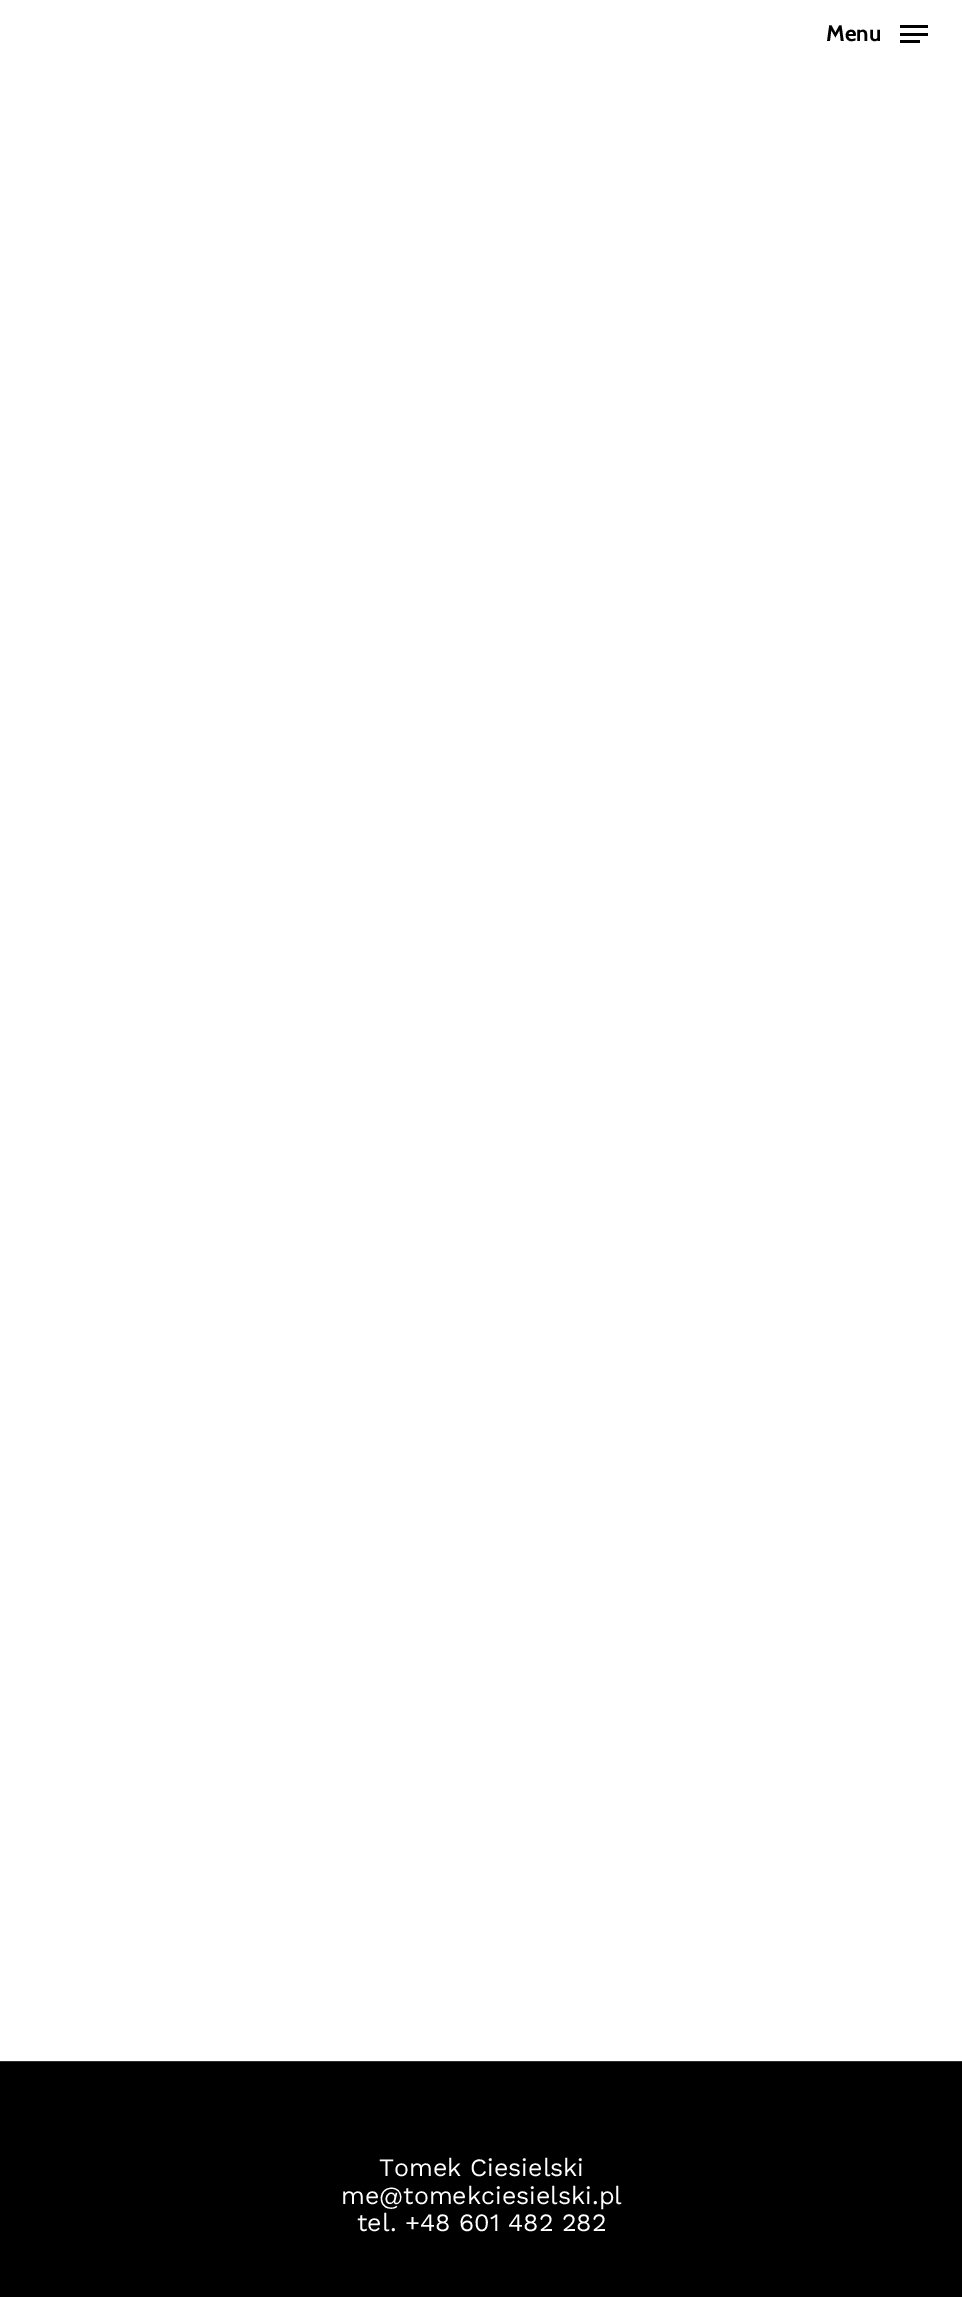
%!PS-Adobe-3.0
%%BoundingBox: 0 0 962 2297
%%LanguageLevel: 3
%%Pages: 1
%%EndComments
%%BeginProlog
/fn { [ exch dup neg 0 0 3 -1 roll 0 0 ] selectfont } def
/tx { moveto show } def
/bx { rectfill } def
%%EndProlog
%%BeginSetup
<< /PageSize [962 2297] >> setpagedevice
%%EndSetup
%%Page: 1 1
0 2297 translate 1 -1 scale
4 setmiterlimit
1 setgray
0 0 962 2297 bx
/Cabin-Bold 22.5 fn
0 setgray
(Menu) 826 41 tx
900 25 28 3 bx
900 40 20 3 bx
900 33 28 3 bx
0 2062 962 235 bx
0.18 setgray
0 2061 962 1 bx
/WorkSans-Regular 25 fn
1 setgray
(Tomek Ciesielski) 379 2176 tx
(me@tomekciesielski.pl) 341 2204 tx
(tel. +48 601 482 282) 357 2231 tx
showpage
%%EOF
